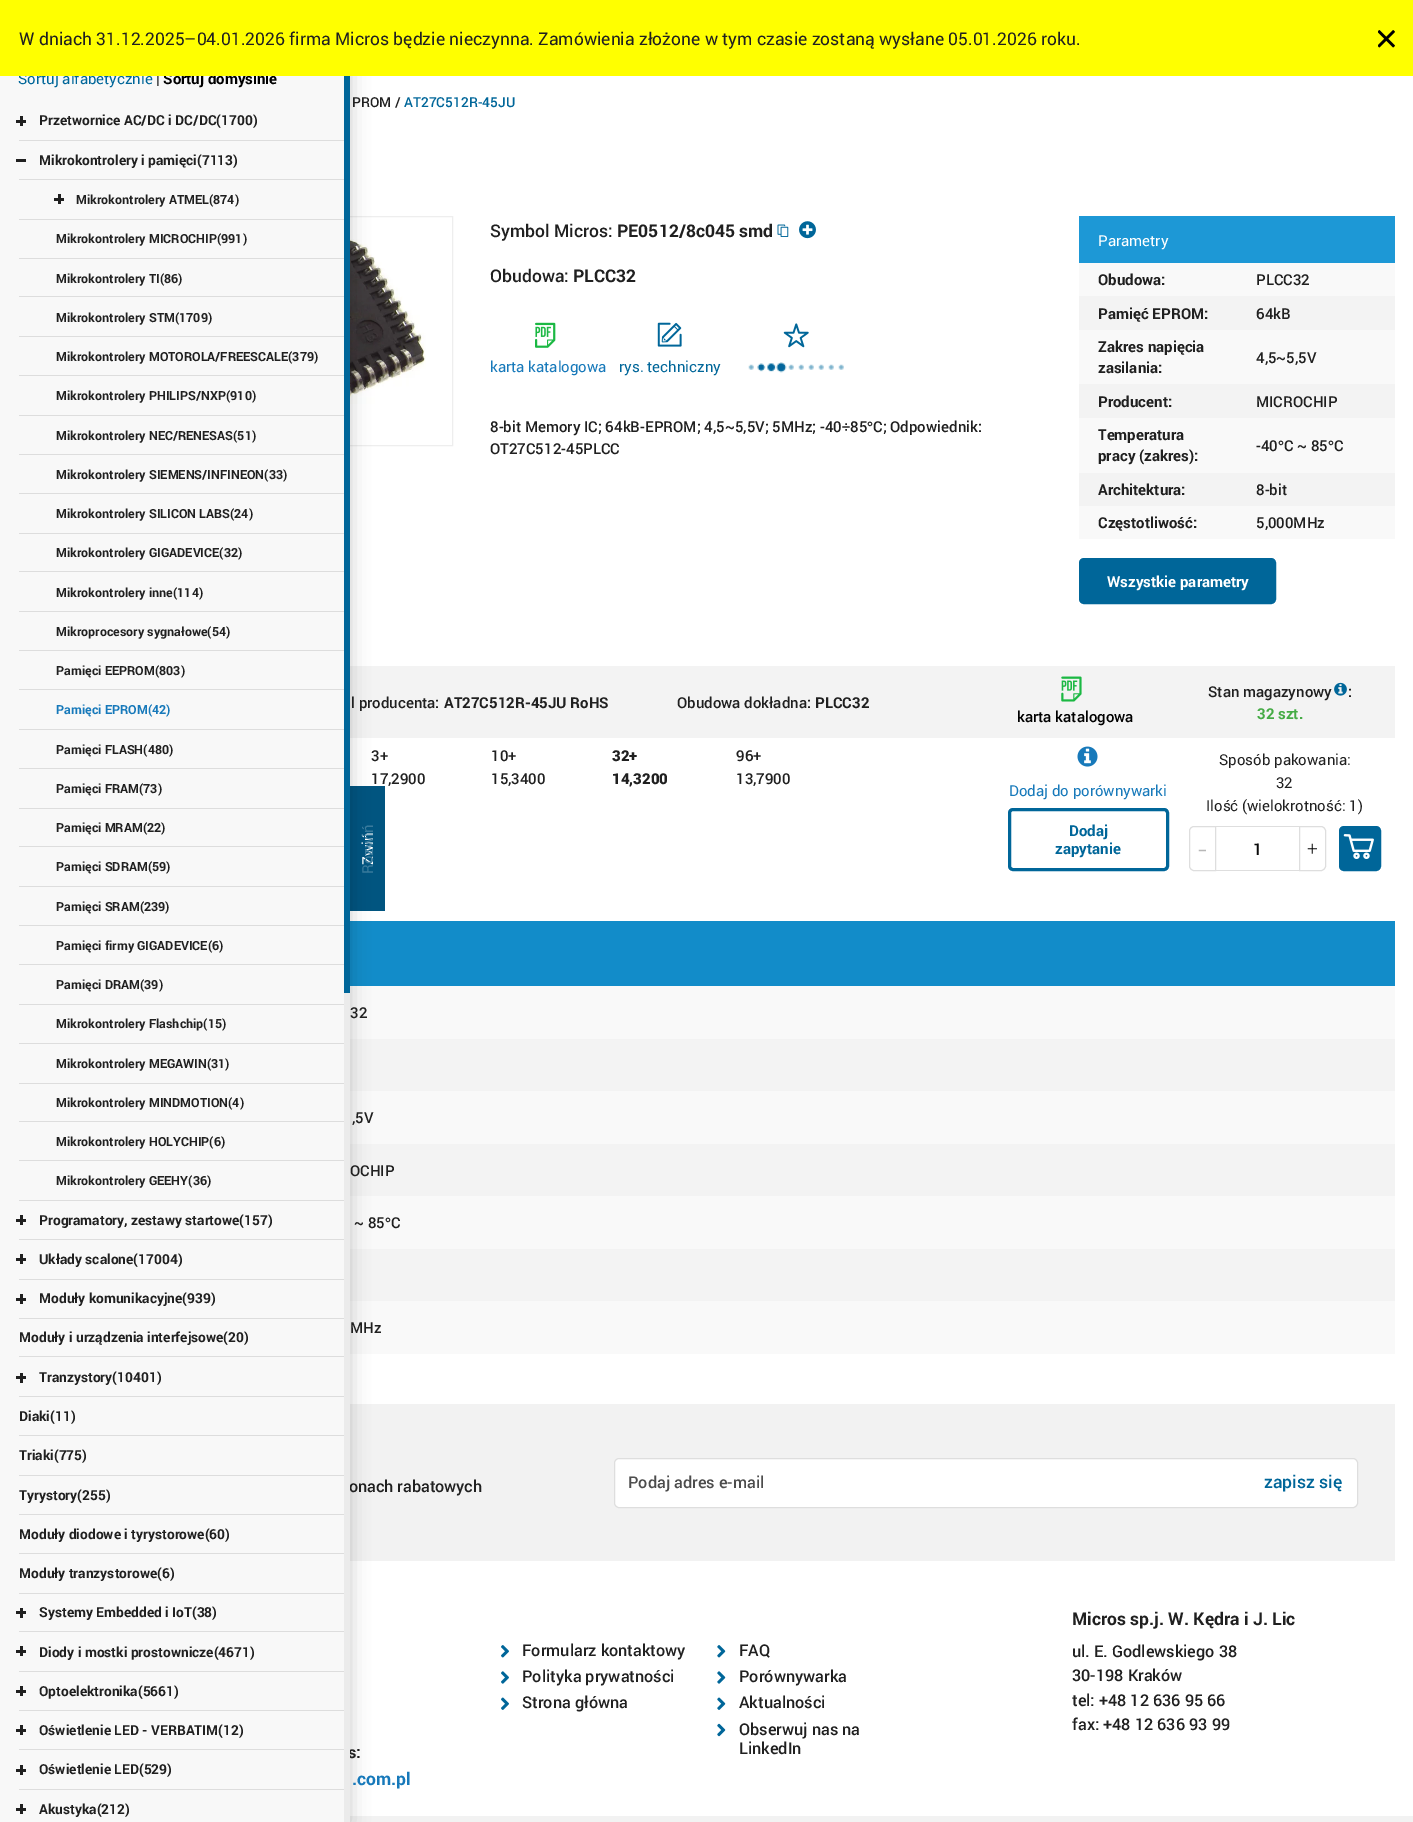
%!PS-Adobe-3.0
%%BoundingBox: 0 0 1413 1822
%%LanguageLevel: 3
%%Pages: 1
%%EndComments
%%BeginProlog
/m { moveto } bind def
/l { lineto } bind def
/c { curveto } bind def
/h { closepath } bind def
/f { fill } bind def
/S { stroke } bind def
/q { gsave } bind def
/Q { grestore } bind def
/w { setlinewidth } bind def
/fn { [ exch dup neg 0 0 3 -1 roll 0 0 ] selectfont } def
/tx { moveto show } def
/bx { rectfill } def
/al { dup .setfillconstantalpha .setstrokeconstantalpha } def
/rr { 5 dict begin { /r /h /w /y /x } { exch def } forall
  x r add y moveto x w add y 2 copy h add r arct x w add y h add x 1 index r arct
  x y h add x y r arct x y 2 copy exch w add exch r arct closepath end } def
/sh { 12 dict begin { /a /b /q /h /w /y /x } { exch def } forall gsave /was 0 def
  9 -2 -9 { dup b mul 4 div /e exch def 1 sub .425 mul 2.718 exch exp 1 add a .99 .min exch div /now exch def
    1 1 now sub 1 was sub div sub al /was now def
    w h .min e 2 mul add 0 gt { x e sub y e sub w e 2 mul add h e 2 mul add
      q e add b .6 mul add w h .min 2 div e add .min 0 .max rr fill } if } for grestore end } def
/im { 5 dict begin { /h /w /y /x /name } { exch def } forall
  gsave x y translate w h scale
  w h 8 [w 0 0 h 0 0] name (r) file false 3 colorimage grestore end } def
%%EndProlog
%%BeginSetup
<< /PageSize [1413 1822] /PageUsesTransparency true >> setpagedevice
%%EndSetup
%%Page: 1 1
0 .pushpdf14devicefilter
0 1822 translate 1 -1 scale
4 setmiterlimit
1 setgray
0 0 1413 1822 bx
/Roboto-Medium 15 fn
0.125 setgray
(17,2900) 371 784 tx
0.004 0.333 0.502 setrgbcolor
350 786 35 125 bx
0.933 setgray
19.5 216.5 433 229 rectstroke
(image1.raw) 350 235 76 198 im
0.953 setgray
350 666 1045 72 bx
0.071 0.549 0.788 setrgbcolor
350 921 1045 65 bx
0.976 setgray
350 986 1045 368 bx
0.953 setgray
350 1039 1045 52 bx
350 1144 1045 52 bx
350 1249 1045 52 bx
0.949 setgray
350 1404 1045 157 bx
350 1816 1063 6 bx
0 setgray
0 54 350 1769 0 9.5 0.2 sh
0.973 setgray
0 76 344 1746 bx
/Roboto-Regular 15 fn
0 0.4 0.6 setrgbcolor
(Sortuj alfabetycznie) 18 84 tx
0.125 setgray
(|) 156 84 tx
/Roboto-Bold 15 fn
0 setgray
(Sortuj domyślnie) 163 84 tx
1 1 0 setrgbcolor
0 0 1413 76 bx
/Roboto-Regular 17.5 fn
0.125 setgray
(W dniach 31.12.2025–04.01.2026 firma Micros będzie nieczynna. Zamówienia złożone w tym czasie zostaną wysłane 05.01.2026 roku.) 19 45 tx
(image0.raw) 1378 30 17 18 im
0.867 setgray
19 140 331 1 bx
0.125 setgray
16 120 10 3 bx
20 116 3 10 bx
/Roboto-Bold 13.75 fn
(Przetwornice AC/DC i DC/DC\(1700\)) 39 125 tx
0.867 setgray
19 179 331 1 bx
0.125 setgray
16 159 10 3 bx
(Mikrokontrolery i pamięci\(7113\)) 39 165 tx
0.867 setgray
19 219 331 1 bx
0.125 setgray
54 198 10 3 bx
58 194 3 10 bx
/Roboto-Bold 12.5 fn
(Mikrokontrolery ATMEL\(874\)) 76 204 tx
0.867 setgray
19 258 331 1 bx
0.125 setgray
(Mikrokontrolery MICROCHIP\(991\)) 56 243 tx
0.867 setgray
19 296 331 1 bx
0.125 setgray
(Mikrokontrolery TI\(86\)) 56 283 tx
0.867 setgray
19 336 331 1 bx
0.125 setgray
(Mikrokontrolery STM\(1709\)) 56 322 tx
0.867 setgray
19 375 331 1 bx
0.125 setgray
(Mikrokontrolery MOTOROLA/FREESCALE\(379\)) 56 361 tx
0.867 setgray
19 415 331 1 bx
0.125 setgray
(Mikrokontrolery PHILIPS/NXP\(910\)) 56 400 tx
0.867 setgray
19 454 331 1 bx
0.125 setgray
(Mikrokontrolery NEC/RENESAS\(51\)) 56 440 tx
0.867 setgray
19 493 331 1 bx
0.125 setgray
(Mikrokontrolery SIEMENS/INFINEON\(33\)) 56 479 tx
0.867 setgray
19 533 331 1 bx
0.125 setgray
(Mikrokontrolery SILICON LABS\(24\)) 56 518 tx
0.867 setgray
19 571 331 1 bx
0.125 setgray
(Mikrokontrolery GIGADEVICE\(32\)) 56 557 tx
0.867 setgray
19 611 331 1 bx
0.125 setgray
(Mikrokontrolery inne\(114\)) 56 597 tx
0.867 setgray
19 650 331 1 bx
0.125 setgray
(Mikroprocesory sygnałowe\(54\)) 56 636 tx
0.867 setgray
19 689 331 1 bx
0.125 setgray
(Pamięci EEPROM\(803\)) 56 675 tx
0.867 setgray
19 729 331 1 bx
0.09 0.475 0.729 setrgbcolor
(Pamięci EPROM\(42\)) 56 714 tx
0.867 setgray
19 768 331 1 bx
0.125 setgray
(Pamięci FLASH\(480\)) 56 754 tx
0.867 setgray
19 808 331 1 bx
0.125 setgray
(Pamięci FRAM\(73\)) 56 793 tx
0.867 setgray
19 846 331 1 bx
0.125 setgray
(Pamięci MRAM\(22\)) 56 832 tx
0.867 setgray
19 886 331 1 bx
0.125 setgray
(Pamięci SDRAM\(59\)) 56 871 tx
0.867 setgray
19 925 331 1 bx
0.125 setgray
(Pamięci SRAM\(239\)) 56 911 tx
0.867 setgray
19 964 331 1 bx
0.125 setgray
(Pamięci firmy GIGADEVICE\(6\)) 56 950 tx
0.867 setgray
19 1004 331 1 bx
0.125 setgray
(Pamięci DRAM\(39\)) 56 989 tx
0.867 setgray
19 1043 331 1 bx
0.125 setgray
(Mikrokontrolery Flashchip\(15\)) 56 1028 tx
0.867 setgray
19 1083 331 1 bx
0.125 setgray
(Mikrokontrolery MEGAWIN\(31\)) 56 1068 tx
0.867 setgray
19 1121 331 1 bx
0.125 setgray
(Mikrokontrolery MINDMOTION\(4\)) 56 1107 tx
0.867 setgray
19 1160 331 1 bx
0.125 setgray
(Mikrokontrolery HOLYCHIP\(6\)) 56 1146 tx
0.867 setgray
19 1200 331 1 bx
0.125 setgray
(Mikrokontrolery GEEHY\(36\)) 56 1185 tx
0.867 setgray
19 1239 331 1 bx
0.125 setgray
16 1219 10 3 bx
20 1215 3 10 bx
/Roboto-Bold 13.75 fn
(Programatory, zestawy startowe\(157\)) 39 1225 tx
0.867 setgray
19 1279 331 1 bx
0.125 setgray
16 1258 10 3 bx
20 1254 3 10 bx
(Układy scalone\(17004\)) 39 1264 tx
0.867 setgray
19 1318 331 1 bx
0.125 setgray
16 1298 10 3 bx
20 1294 3 10 bx
(Moduły komunikacyjne\(939\)) 39 1303 tx
0.867 setgray
19 1356 331 1 bx
0.125 setgray
(Moduły i urządzenia interfejsowe\(20\)) 19 1342 tx
0.867 setgray
19 1396 331 1 bx
0.125 setgray
16 1376 10 3 bx
20 1373 3 10 bx
(Tranzystory\(10401\)) 39 1382 tx
0.867 setgray
19 1435 331 1 bx
0.125 setgray
(Diaki\(11\)) 19 1421 tx
0.867 setgray
19 1475 331 1 bx
0.125 setgray
(Triaki\(775\)) 19 1460 tx
0.867 setgray
19 1514 331 1 bx
0.125 setgray
(Tyrystory\(255\)) 19 1500 tx
0.867 setgray
19 1553 331 1 bx
0.125 setgray
(Moduły diodowe i tyrystorowe\(60\)) 19 1539 tx
0.867 setgray
19 1593 331 1 bx
0.125 setgray
(Moduły tranzystorowe\(6\)) 19 1578 tx
0.867 setgray
19 1631 331 1 bx
0.125 setgray
16 1611 10 3 bx
20 1608 3 10 bx
(Systemy Embedded i IoT\(38\)) 39 1617 tx
0.867 setgray
19 1671 331 1 bx
0.125 setgray
16 1650 10 3 bx
20 1646 3 10 bx
(Diody i mostki prostownicze\(4671\)) 39 1657 tx
0.867 setgray
19 1710 331 1 bx
0.125 setgray
16 1690 10 3 bx
20 1686 3 10 bx
(Optoelektronika\(5661\)) 39 1696 tx
/Roboto-Bold 16.25 fn
(s:) 348 1758 tx
0.867 setgray
19 1749 331 1 bx
0.125 setgray
16 1729 10 3 bx
20 1725 3 10 bx
/Roboto-Bold 13.75 fn
(Oświetlenie LED - VERBATIM\(12\)) 39 1735 tx
0.867 setgray
19 1789 331 1 bx
0.125 setgray
16 1769 10 3 bx
20 1765 3 10 bx
(Oświetlenie LED\(529\)) 39 1774 tx
16 1808 10 3 bx
20 1804 3 10 bx
(Akustyka\(212\)) 39 1814 tx
/Roboto-Medium 16.25 fn
349 1492 m -0.1 0 (onach rabatowych) ashow
0.922 setgray
344 993 6 829 bx
0 0.4 0.6 setrgbcolor
344 76 6 917 bx
/Roboto-Regular 15 fn
1 setgray
q 373 865 translate -90 rotate 0 0 m (Zwiń) show Q
0.224 0.478 0.612 setrgbcolor
q 373 874 translate -90 rotate 0 0 m (Rozwiń) show Q
/Roboto-Medium 13.75 fn
0.125 setgray
(PROM /) 352 107 tx
0 0.4 0.6 setrgbcolor
(AT27C512R-45JU) 404 107 tx
/Roboto-Medium 17.5 fn
0.125 setgray
(Symbol Micros:) 490 237 tx
/Roboto-Bold 17.5 fn
(PE0512/8c045 smd) 617 237 tx
(image2.raw) 777 224 12 13 im
(image3.raw) 799 221 17 18 im
/Roboto-Medium 17.5 fn
(Obudowa:) 490 282 tx
/Roboto-Bold 17.5 fn
(PLCC32) 573 282 tx
(image4.raw) 535 322 21 26 im
/Roboto-Regular 15 fn
0.09 0.475 0.729 setrgbcolor
(karta katalogowa) 490 372 tx
(image5.raw) 657 322 25 25 im
0 0.4 0.6 setrgbcolor
(rys. techniczny) 619 372 tx
(image6.raw) 783 323 26 25 im
(image7.raw) 748 362 96 11 im
/Roboto-Medium 15 fn
0.125 setgray
(8-bit Memory IC; 64kB-EPROM; 4,5~5,5V; 5MHz; -40) 490 432 tx
/LiberationSans-Bold 15 fn
(÷) 842 432 tx
/Roboto-Medium 15 fn
(85) 850 432 tx
/LiberationSans-Bold 15 fn
(°) 867 432 tx
/Roboto-Medium 15 fn
(C; Odpowiednik:) 873 432 tx
(OT27C512-45PLCC) 490 454 tx
0.114 0.596 0.839 setrgbcolor
1079 216 316 47 bx
/Roboto-Regular 15 fn
1 setgray
(Parametry) 1098 246 tx
0.976 setgray
1079 263 316 33 bx
/Roboto-Bold 15 fn
0.125 setgray
(Obudowa:) 1098 285 tx
/Roboto-Medium 15 fn
(PLCC32) 1256 285 tx
0.953 setgray
1079 296 316 34 bx
/Roboto-Bold 15 fn
0.125 setgray
(Pamięć EPROM:) 1098 319 tx
/Roboto-Medium 15 fn
(64kB) 1256 319 tx
0.976 setgray
1079 330 316 54 bx
/Roboto-Bold 15 fn
0.125 setgray
(Zakres napięcia) 1098 352 tx
(zasilania:) 1098 373 tx
/Roboto-Medium 15 fn
(4,5~5,5V) 1256 363 tx
0.953 setgray
1079 384 316 34 bx
/Roboto-Bold 15 fn
0.125 setgray
(Producent:) 1098 407 tx
/Roboto-Medium 15 fn
(MICROCHIP) 1256 407 tx
0.976 setgray
1079 418 316 55 bx
/Roboto-Bold 15 fn
0.125 setgray
(Temperatura) 1098 440 tx
(pracy \(zakres\):) 1098 461 tx
/Roboto-Medium 15 fn
(-40) 1256 451 tx
/LiberationSans-Bold 15 fn
(°) 1278 451 tx
/Roboto-Medium 15 fn
(C ~ 85) 1284 451 tx
/LiberationSans-Bold 15 fn
(°) 1328 451 tx
/Roboto-Medium 15 fn
(C) 1334 451 tx
0.953 setgray
1079 473 316 33 bx
/Roboto-Bold 15 fn
0.125 setgray
(Architektura:) 1098 495 tx
/Roboto-Medium 15 fn
(8-bit) 1256 495 tx
0.976 setgray
1079 506 316 33 bx
/Roboto-Bold 15 fn
0.125 setgray
(Częstotliwość:) 1098 528 tx
/Roboto-Medium 15 fn
(5,000MHz) 1256 528 tx
0 0.4 0.6 setrgbcolor
1080.5 559.5 194 43 3.5 rr q f Q
3 w
S
/Roboto-Bold 15 fn
1 setgray
(Wszystkie parametry) 1107 587 tx
/Roboto-Medium 15 fn
0.125 setgray
(l producenta:) 351 708 tx
/Roboto-Bold 15 fn
(AT27C512R-45JU RoHS) 444 708 tx
/Roboto-Medium 15 fn
(Obudowa dokładna:) 677 708 tx
/Roboto-Bold 15 fn
(PLCC32) 815 708 tx
/Roboto-Medium 15 fn
(Stan magazynowy) 1208 697 tx
(image8.raw) 1334 682 13 14 im
(:) 1348 697 tx
/Roboto-Bold 15 fn
0.271 0.671 0.271 setrgbcolor
(32 szt.) 1257 719 tx
(image9.raw) 1061 676 21 26 im
/Roboto-Medium 15 fn
0 setgray
(karta katalogowa) 1017 722 tx
0.125 setgray
(3+) 371 761 tx
(10+) 491 761 tx
/Roboto-Black 15 fn
(32+) 612 761 tx
/Roboto-Medium 15 fn
(96+) 736 761 tx
(15,3400) 491 784 tx
/Roboto-Black 15 fn
(14,3200) 612 784 tx
/Roboto-Medium 15 fn
(13,7900) 736 784 tx
(image10.raw) 1077 746 21 21 im
/Roboto-Regular 15 fn
0.09 0.475 0.729 setrgbcolor
(Dodaj do porównywarki) 1009 796 tx
0 0.4 0.6 setrgbcolor
1009.5 809.5 158 60 3.5 rr S
/Roboto-Bold 15 fn
(Dodaj) 1069 836 tx
(zapytanie) 1055 854 tx
/Roboto-Regular 15 fn
0.125 setgray
(Sposób pakowania:) 1219 765 tx
(32) 1276 788 tx
(Ilość \(wielokrotność: 1\)) 1206 811 tx
0.871 setgray
1 w
1194 826.5 m 1215.5 826.5 l 1215.5 870.5 l 1194 870.5 l 1191.5 870.5 1189.5 868.5 1189.5 866 c 1189.5 831 l 1189.5 828.5 1191.5 826.5 1194 826.5 c h S
/Roboto-Light 31 fn
0.718 setgray
(-) 1198 860 tx
0.871 setgray
1216 826 83 1 bx
1216 870 83 1 bx
/Roboto-Medium 16.25 fn
0.039 setgray
(1) 1253 855 tx
0.871 setgray
1299.5 826.5 m 1321 826.5 l 1323.5 826.5 1325.5 828.5 1325.5 831 c 1325.5 866 l 1325.5 868.5 1323.5 870.5 1321 870.5 c 1299.5 870.5 l h S
/Roboto-Light 19 fn
0 setgray
(+) 1307 855 tx
0 0.4 0.6 setrgbcolor
1340.5 827.5 39 42 3.5 rr q f Q
3 w
S
(image11.raw) 1343 834 31 25 im
/Roboto-Medium 15 fn
0.125 setgray
(32) 350 1018 tx
(,5V) 352 1123 tx
(OCHIP) 350 1176 tx
(~ 85) 354 1228 tx
/LiberationSans-Bold 15 fn
(°) 385 1228 tx
/Roboto-Medium 15 fn
(C) 391 1228 tx
(MHz) 350 1333 tx
1 setgray
614.5 1458.5 743 49 4.5 rr q f Q
0.871 setgray
1 w
S
/Roboto-Medium 16.25 fn
0.302 setgray
(Podaj adres e-mail) 628 1488 tx
/Roboto-Medium 17.5 fn
0 0.4 0.6 setrgbcolor
(zapisz się) 1264 1488 tx
(image12.raw) 501 1645 8 13 im
/Roboto-Medium 16.25 fn
0.125 setgray
(Formularz kontaktowy) 522 1656 tx
(image13.raw) 501 1671 8 13 im
(Polityka prywatności) 522 1682 tx
(image14.raw) 501 1697 8 13 im
(Strona główna) 522 1708 tx
(image15.raw) 717 1645 9 13 im
(FAQ) 739 1656 tx
(image16.raw) 717 1671 9 13 im
(Porównywarka) 739 1682 tx
(image17.raw) 717 1697 9 13 im
(Aktualności) 739 1708 tx
(image18.raw) 717 1723 9 14 im
(Obserwuj nas na) 739 1735 tx
(LinkedIn) 739 1754 tx
/Roboto-Bold 17.5 fn
(Micros sp.j. W. Kędra i J. Lic) 1072 1625 tx
/Roboto-Medium 16.25 fn
(ul. E. Godlewskiego 38) 1072 1657 tx
(30-198 Kraków) 1072 1681 tx
(tel: +48 12 636 95 66) 1072 1706 tx
(fax: +48 12 636 93 99) 1072 1730 tx
/Roboto-Bold 17.5 fn
0.09 0.475 0.729 setrgbcolor
(.com.pl) 352 1785 tx
.poppdf14devicefilter showpage
%%EOF
